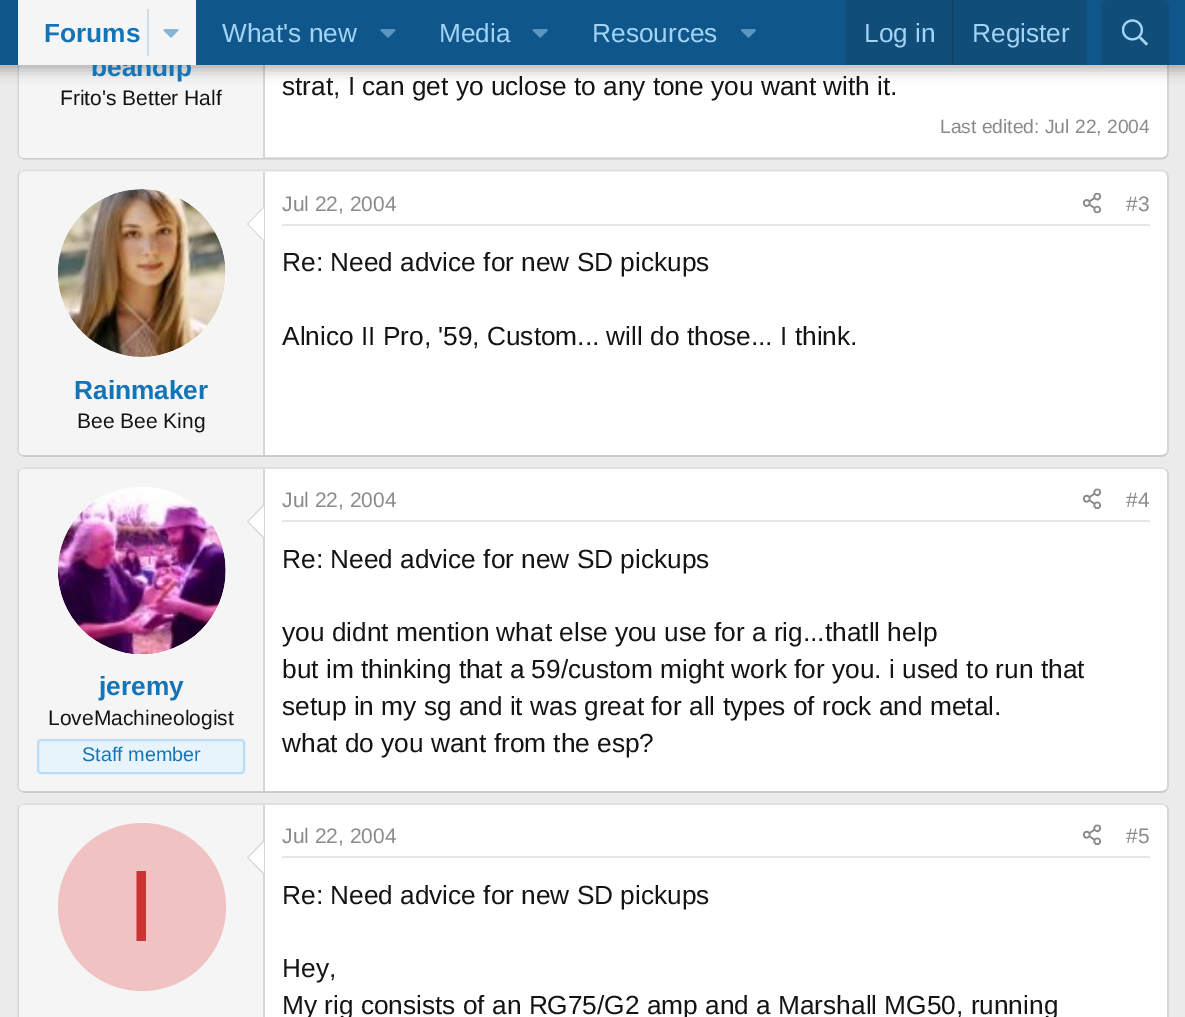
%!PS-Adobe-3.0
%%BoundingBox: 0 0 1185 1017
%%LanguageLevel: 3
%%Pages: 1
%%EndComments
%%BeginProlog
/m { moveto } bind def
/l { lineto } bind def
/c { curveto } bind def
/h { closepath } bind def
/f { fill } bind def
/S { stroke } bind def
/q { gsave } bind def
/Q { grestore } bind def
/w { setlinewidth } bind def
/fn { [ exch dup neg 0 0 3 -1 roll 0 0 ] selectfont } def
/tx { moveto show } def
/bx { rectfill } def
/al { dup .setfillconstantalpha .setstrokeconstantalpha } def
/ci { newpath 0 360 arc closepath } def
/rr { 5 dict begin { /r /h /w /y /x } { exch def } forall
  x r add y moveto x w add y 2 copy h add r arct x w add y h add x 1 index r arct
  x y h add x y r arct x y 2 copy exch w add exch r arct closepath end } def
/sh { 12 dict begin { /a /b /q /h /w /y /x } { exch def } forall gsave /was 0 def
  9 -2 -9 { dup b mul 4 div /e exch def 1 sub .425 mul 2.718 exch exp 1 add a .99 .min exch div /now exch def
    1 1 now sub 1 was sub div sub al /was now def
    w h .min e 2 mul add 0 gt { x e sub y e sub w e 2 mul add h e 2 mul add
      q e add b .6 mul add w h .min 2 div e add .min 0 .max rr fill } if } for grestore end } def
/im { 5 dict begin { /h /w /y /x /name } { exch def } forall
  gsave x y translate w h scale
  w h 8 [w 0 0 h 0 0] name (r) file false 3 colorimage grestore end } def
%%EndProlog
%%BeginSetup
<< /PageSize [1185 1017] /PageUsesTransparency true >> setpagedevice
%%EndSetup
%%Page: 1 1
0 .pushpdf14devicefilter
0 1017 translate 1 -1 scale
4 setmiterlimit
0.922 setgray
0 0 1185 1017 bx
1 setgray
18 -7 1151 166 7 rr f
0.839 setgray
1.8 w
1166.5 -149.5 m 1167.5 -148.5 1168 -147 1168 -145 c 1168 152 l 1168 154 1167.5 155.5 1166.5 156.5 c S
0.8 setgray
1166.5 156.5 m 1165 157.5 1163.5 158.5 1162 158.5 c 24.5 158.5 l 23 158.5 21.5 157.5 20 156.5 c S
0.839 setgray
20 156.5 m 19 155.5 18.5 154 18.5 152 c 18.5 -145 l 18.5 -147 19 -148.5 20 -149.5 c S
0.961 setgray
24 -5 m 264 -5 l 264 158 l 24 158 l 21 158 19 156 19 153 c 19 0 l 19 -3 21 -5 24 -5 c h f
0.839 setgray
263 65 2 93 bx
0 setgray
-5 -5 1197 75 0 7 0.3 sh
/LiberationSans-Bold 26.25 fn
0.078 0.455 0.722 setrgbcolor
(beandip) 91 76 tx
0.059 0.341 0.541 setrgbcolor
0 0 1185 65 bx
0.961 setgray
18 0 178 65 bx
0.078 0.455 0.722 setrgbcolor
(Forums) 44 42 tx
0.808 0.875 0.922 setrgbcolor
147 9 2 47 bx
(image0.raw) 163 29 16 9 im
/LiberationSans-Regular 26.25 fn
0.639 0.831 0.961 setrgbcolor
(What's new) 222 42 tx
(image1.raw) 380 29 16 9 im
(Media) 439 42 tx
(image2.raw) 532 29 16 9 im
(Resources) 592 42 tx
(image3.raw) 740 29 16 9 im
0.063 0.302 0.471 setrgbcolor
845 0 242 65 bx
0.639 0.831 0.961 setrgbcolor
(Log in) 864 42 tx
0.067 0.267 0.412 setrgbcolor
952 0 2 65 bx
0.639 0.831 0.961 setrgbcolor
(Register) 972 42 tx
0.063 0.302 0.471 setrgbcolor
1108 0 m 1162 0 l 1166 0 1169 3 1169 7 c 1169 65 l 1101 65 l 1101 7 l 1101 3 1104 0 1108 0 c h f
(image4.raw) 1122 19 26 27 im
/LiberationSans-Regular 21 fn
0.078 setgray
(Frito's Better Half) 60 105 tx
/LiberationSans-Regular 26.25 fn
(strat, I can get yo uclose to any tone you want with it.) 282 95 tx
/LiberationSans-Regular 19.25 fn
0.541 setgray
(Last edited: Jul 22, 2004) 940 133 tx
1 setgray
18 170 1151 287 7 rr f
0.878 setgray
20 172.5 m 21.5 171.5 23 170.5 24.5 170.5 c 1162 170.5 l 1163.5 170.5 1165 171.5 1166.5 172.5 c S
0.839 setgray
1166.5 172.5 m 1167.5 173.5 1168 175 1168 177 c 1168 450 l 1168 451.5 1167.5 453 1166.5 454 c S
0.8 setgray
1166.5 454 m 1165 455 1163.5 456 1162 456 c 24.5 456 l 23 456 21.5 455 20 454 c S
0.839 setgray
20 454 m 19 453 18.5 451.5 18.5 450 c 18.5 177 l 18.5 175 19 173.5 20 172.5 c S
0.902 setgray
282 224 868 2 bx
/LiberationSans-Regular 21 fn
0.541 setgray
(Jul 22, 2004) 282 211 tx
(image5.raw) 1082 192 20 22 im
(#3) 1126 211 tx
/LiberationSans-Regular 26.25 fn
0.078 setgray
(Re: Need advice for new SD pickups) 282 271 tx
(Alnico II Pro, '59, Custom... will do those... I think.) 282 345 tx
0.961 setgray
24 172 m 264 172 l 264 455 l 24 455 l 21 455 19 453 19 450 c 19 177 l 19 174 21 172 24 172 c h f
0.839 setgray
263 172 2 283 bx
1 setgray
142 273 84 ci f
(image6.raw) 58 189 168 168 im
0.839 setgray
264 206.5 m 264 241.5 l 247 224 l h f
1 setgray
264 208 m 264 240 l 248.5 224 l h f
/LiberationSans-Bold 26.25 fn
0.078 0.455 0.722 setrgbcolor
(Rainmaker) 74 399 tx
/LiberationSans-Regular 21 fn
0.078 setgray
(Bee Bee King) 77 428 tx
1 setgray
18 467 1151 326 7 rr f
0.878 setgray
20 470 m 21.5 469 23 468 24.5 468 c 1162 468 l 1163.5 468 1165 469 1166.5 470 c S
0.839 setgray
1166.5 470 m 1167.5 471 1168 472.5 1168 474 c 1168 786 l 1168 787.5 1167.5 789 1166.5 790 c S
0.8 setgray
1166.5 790 m 1165 791 1163.5 792 1162 792 c 24.5 792 l 23 792 21.5 791 20 790 c S
0.839 setgray
20 790 m 19 789 18.5 787.5 18.5 786 c 18.5 474 l 18.5 472.5 19 471 20 470 c S
0.961 setgray
24 469 m 264 469 l 264 791 l 24 791 l 21 791 19 789 19 786 c 19 474 l 19 471 21 469 24 469 c h f
0.839 setgray
263 469 2 322 bx
1 setgray
142 571 84 ci f
(image7.raw) 58 487 168 168 im
0.839 setgray
264 504 m 264 539 l 247 521.5 l h f
1 setgray
264 506 m 264 537 l 248.5 521.5 l h f
/LiberationSans-Bold 26.25 fn
0.078 0.455 0.722 setrgbcolor
(jeremy) 99 695 tx
/LiberationSans-Regular 21 fn
0.078 setgray
(LoveMachineologist) 48 725 tx
0.91 0.957 0.988 setrgbcolor
38 740 206 33 3 rr q f Q
0.729 0.867 0.969 setrgbcolor
2 w
S
/LiberationSans-Regular 19.75 fn
0.078 0.455 0.722 setrgbcolor
(Staff member) 82 761 tx
0.902 setgray
282 520 868 2 bx
/LiberationSans-Regular 21 fn
0.541 setgray
(Jul 22, 2004) 282 507 tx
(image8.raw) 1082 488 20 21 im
(#4) 1126 507 tx
/LiberationSans-Regular 26.25 fn
0.078 setgray
(Re: Need advice for new SD pickups) 282 568 tx
(you didnt mention what else you use for a rig...thatll help) 282 641 tx
(but im thinking that a 59/custom might work for you. i used to run that) 282 678 tx
(setup in my sg and it was great for all types of rock and metal.) 282 715 tx
(what do you want from the esp?) 282 752 tx
1 setgray
18 803 1151 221 7 rr f
0.878 setgray
1.8 w
20 806 m 21.5 805 23 804 24.5 804 c 1162 804 l 1163.5 804 1165 805 1166.5 806 c S
0.839 setgray
1166.5 806 m 1167.5 807 1168 808.5 1168 810 c 1168 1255 l 1168 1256.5 1167.5 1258 1166.5 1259 c S
20 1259 m 19 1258 18.5 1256.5 18.5 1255 c 18.5 810 l 18.5 808.5 19 807 20 806 c S
0.961 setgray
24 805 m 264 805 l 264 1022 l 24 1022 l 21 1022 19 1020 19 1017 c 19 810 l 19 807 21 805 24 805 c h f
0.839 setgray
263 805 2 212 bx
264 840 m 264 875 l 247 857.5 l h f
1 setgray
264 842 m 264 873 l 248.5 857.5 l h f
0.941 0.761 0.761 setrgbcolor
142 907 84 ci f
/LiberationSans-Regular 102 fn
0.8 0.2 0.2 setrgbcolor
(I) 127 941 tx
0.902 setgray
282 856 868 2 bx
/LiberationSans-Regular 21 fn
0.541 setgray
(Jul 22, 2004) 282 843 tx
(image8.raw) 1082 824 20 21 im
(#5) 1126 843 tx
/LiberationSans-Regular 26.25 fn
0.078 setgray
(Re: Need advice for new SD pickups) 282 904 tx
(Hey,) 282 977 tx
(My rig consists of an RG75/G2 amp and a Marshall MG50, running) 282 1014 tx
.poppdf14devicefilter showpage
%%EOF
